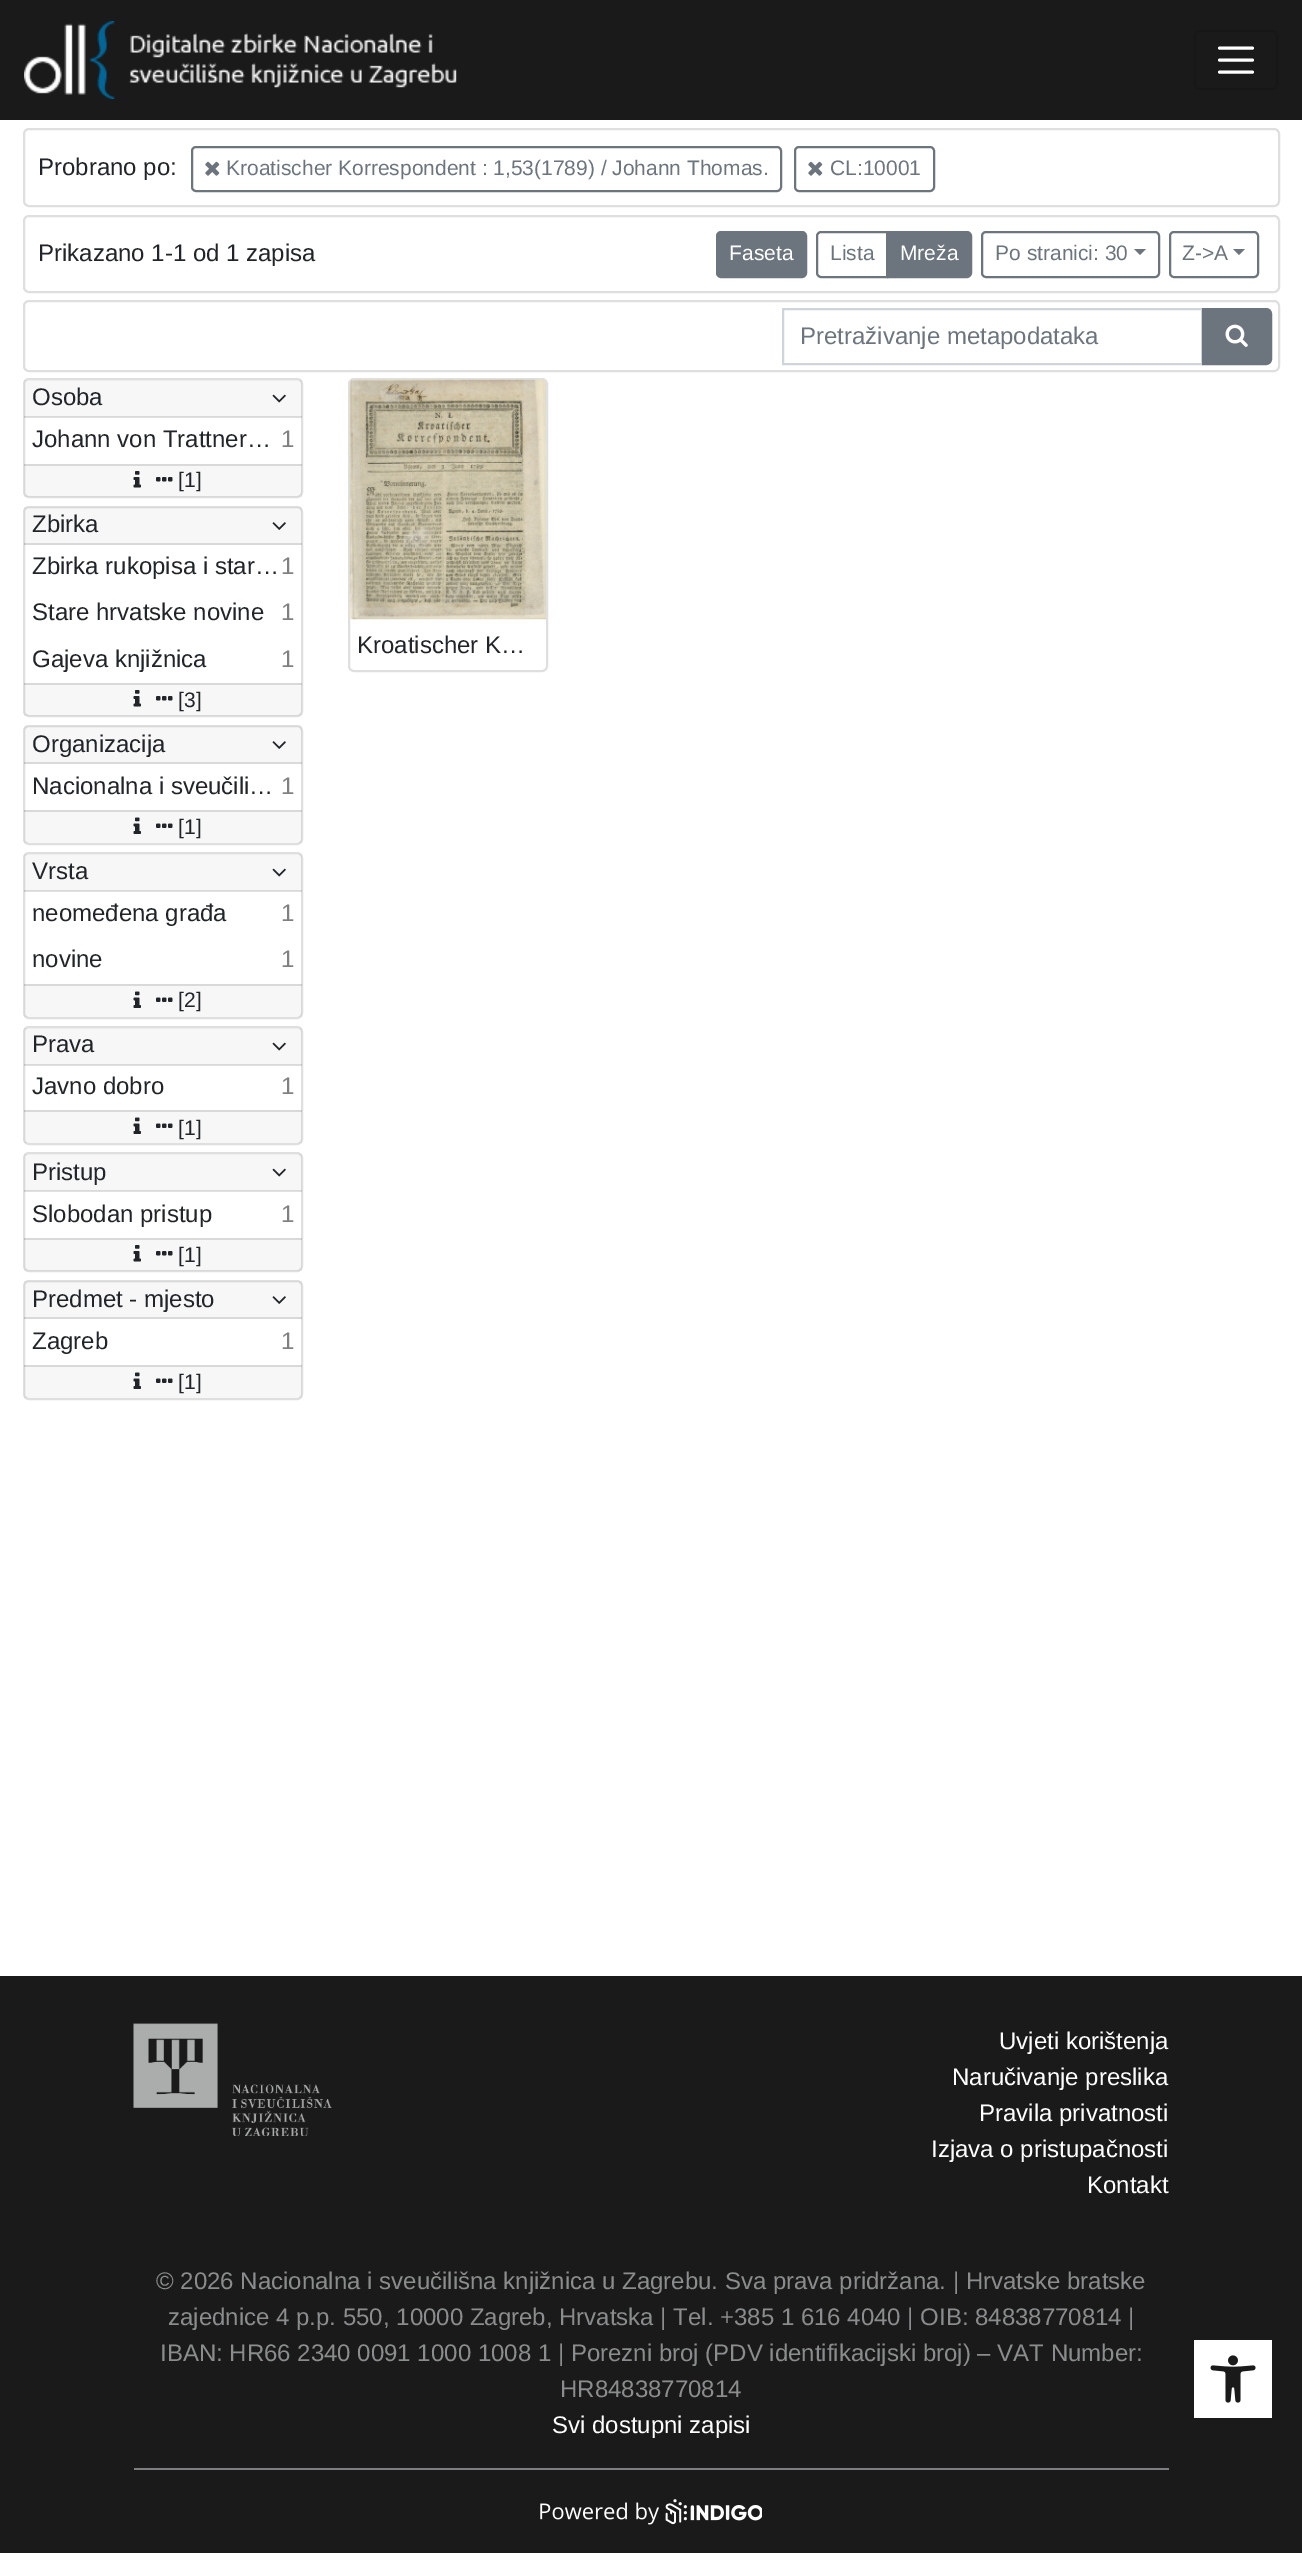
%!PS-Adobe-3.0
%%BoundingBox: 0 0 1302 2553
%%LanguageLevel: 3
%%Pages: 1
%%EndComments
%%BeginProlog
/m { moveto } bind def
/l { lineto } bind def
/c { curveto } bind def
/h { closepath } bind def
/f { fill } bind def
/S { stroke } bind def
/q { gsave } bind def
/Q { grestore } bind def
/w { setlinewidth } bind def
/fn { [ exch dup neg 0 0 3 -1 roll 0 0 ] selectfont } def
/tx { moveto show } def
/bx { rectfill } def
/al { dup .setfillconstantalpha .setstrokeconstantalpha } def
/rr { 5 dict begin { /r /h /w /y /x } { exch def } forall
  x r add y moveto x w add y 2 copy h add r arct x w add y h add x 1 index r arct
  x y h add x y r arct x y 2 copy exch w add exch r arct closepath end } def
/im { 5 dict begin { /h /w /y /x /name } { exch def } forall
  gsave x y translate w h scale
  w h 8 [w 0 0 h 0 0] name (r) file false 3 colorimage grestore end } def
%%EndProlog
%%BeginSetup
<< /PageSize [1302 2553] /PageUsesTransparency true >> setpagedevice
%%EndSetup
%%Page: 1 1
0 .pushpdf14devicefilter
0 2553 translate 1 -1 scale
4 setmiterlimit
1 setgray
0 0 1302 2553 bx
0.102 setgray
0 0 1302 120 bx
(image0.raw) 24 21 433 78 im
0.09 setgray
2 w
1195 31 82 58 5 rr S
1 setgray
3 w
1 setlinecap
1219.5 48 m 1252.5 48 l 1219.5 60 m 1252.5 60 l 1219.5 72 m 1252.5 72 l S
0.875 setgray
2 w
0 setlinecap
24 129 1255 77 5 rr S
/LiberationSans-Regular 24 fn
0.129 0.145 0.161 setrgbcolor
(Probrano po:) 38 175 tx
0.424 0.459 0.49 setrgbcolor
192 147 589 44 4 rr S
(image1.raw) 205 161 15 15 im
/LiberationSans-Regular 21 fn
(Kroatischer Korrespondent : 1,53\(1789\) / Johann Thomas.) 226 175 tx
795 147 139 44 4 rr S
(image1.raw) 808 161 15 15 im
(CL:10001) 830 175 tx
0.875 setgray
24 216 1255 76 5 rr S
/LiberationSans-Regular 24 fn
0.129 0.145 0.161 setrgbcolor
(Prikazano 1-1 od 1 zapisa) 38 261 tx
0.424 0.459 0.49 setrgbcolor
717 232 89 45 4 rr q f Q
S
/LiberationSans-Regular 21 fn
1 setgray
(Faseta) 729 260 tx
0.424 0.459 0.49 setrgbcolor
821 232 m 887 232 l 887 277 l 821 277 l 819 277 817 275 817 273 c 817 236 l 817 234 819 232 821 232 c h S
(Lista) 830 260 tx
888 232 m 967 232 l 969 232 971 234 971 236 c 971 273 l 971 275 969 277 967 277 c 888 277 l h q f Q
S
1 setgray
(Mreža) 900 260 tx
0.424 0.459 0.49 setrgbcolor
982 232 177 45 4 rr S
(Po stranici: 30) 995 260 tx
1134 249 m 1146 249 l 1140 255 l h f
1170 232 88 45 4 rr S
(Z->A) 1182 260 tx
1233 249 m 1245 249 l 1239 255 l h f
0.875 setgray
24 301 1255 70 5 rr S
0.808 0.831 0.855 setrgbcolor
783 309 419 55 rectstroke
/LiberationSans-Regular 24 fn
0.424 0.459 0.49 setrgbcolor
(Pretraživanje metapodataka) 800 344 tx
1203 309 m 1266 309 l 1269 309 1271 311 1271 314 c 1271 359 l 1271 362 1269 364 1266 364 c 1203 364 l h q f Q
S
(image2.raw) 1225 324 23 23 im
0.875 setgray
24 379 278 118 5 rr S
0.03 al
0 setgray
24 380 278 37 bx
0.12 al
24 416 278 2 bx
1 al
0.129 0.145 0.161 setrgbcolor
(Osoba) 32 405 tx
(image3.raw) 272 394 14 9 im
(Johann von Trattner…) 32 447 tx
0.502 setgray
(1) 281 447 tx
0.03 al
0 setgray
24 464 278 33 bx
0.12 al
24 464 278 2 bx
1 al
(image4.raw) 133 471 8 17 im
(image5.raw) 156 477 17 5 im
/LiberationSans-Regular 21 fn
0.129 0.145 0.161 setrgbcolor
([1]) 178 487 tx
0.875 setgray
24 507 278 209 5 rr S
0.03 al
0 setgray
24 507 278 38 bx
0.12 al
24 543 278 2 bx
/LiberationSans-Regular 24 fn
1 al
0.129 0.145 0.161 setrgbcolor
(Zbirka) 32 532 tx
(image6.raw) 272 522 14 8 im
(Zbirka rukopisa i star…) 32 574 tx
0.502 setgray
(1) 281 574 tx
0.129 0.145 0.161 setrgbcolor
(Stare hrvatske novine) 32 620 tx
0.502 setgray
(1) 281 620 tx
0.129 0.145 0.161 setrgbcolor
(Gajeva knjižnica) 32 667 tx
0.502 setgray
(1) 281 667 tx
0.03 al
0 setgray
24 683 278 33 bx
0.12 al
24 683 278 2 bx
1 al
(image4.raw) 133 690 8 17 im
(image5.raw) 156 696 17 5 im
/LiberationSans-Regular 21 fn
0.129 0.145 0.161 setrgbcolor
([3]) 178 707 tx
0.875 setgray
24 726 278 118 5 rr S
0.03 al
0 setgray
24 726 278 38 bx
0.12 al
24 762 278 2 bx
/LiberationSans-Regular 24 fn
1 al
0.129 0.145 0.161 setrgbcolor
(Organizacija) 32 752 tx
(image6.raw) 272 741 14 8 im
(Nacionalna i sveučili…) 32 794 tx
0.502 setgray
(1) 281 794 tx
0.03 al
0 setgray
24 810 278 33 bx
0.12 al
24 810 278 2 bx
1 al
(image7.raw) 133 817 8 17 im
(image8.raw) 156 823 17 5 im
/LiberationSans-Regular 21 fn
0.129 0.145 0.161 setrgbcolor
([1]) 178 834 tx
0.875 setgray
24 853 278 165 5 rr S
0.03 al
0 setgray
24 854 278 37 bx
0.12 al
24 890 278 2 bx
/LiberationSans-Regular 24 fn
1 al
0.129 0.145 0.161 setrgbcolor
(Vrsta) 32 879 tx
(image3.raw) 272 868 14 9 im
(neomeđena građa) 32 921 tx
0.502 setgray
(1) 281 921 tx
0.129 0.145 0.161 setrgbcolor
(novine) 32 967 tx
0.502 setgray
(1) 281 967 tx
0.03 al
0 setgray
24 984 278 33 bx
0.12 al
24 984 278 2 bx
1 al
(image7.raw) 133 991 8 17 im
(image8.raw) 156 997 17 5 im
/LiberationSans-Regular 21 fn
0.129 0.145 0.161 setrgbcolor
([2]) 178 1007 tx
0.875 setgray
24 1027 278 117 5 rr S
0.03 al
0 setgray
24 1028 278 37 bx
0.12 al
24 1064 278 2 bx
/LiberationSans-Regular 24 fn
1 al
0.129 0.145 0.161 setrgbcolor
(Prava) 32 1052 tx
(image3.raw) 272 1042 14 9 im
(Javno dobro) 32 1094 tx
0.502 setgray
(1) 281 1094 tx
0.03 al
0 setgray
24 1110 278 33 bx
0.12 al
24 1110 278 2 bx
1 al
(image7.raw) 133 1117 8 17 im
(image8.raw) 156 1123 17 5 im
/LiberationSans-Regular 21 fn
0.129 0.145 0.161 setrgbcolor
([1]) 178 1135 tx
0.875 setgray
24 1153 278 118 5 rr S
0.03 al
0 setgray
24 1154 278 37 bx
0.12 al
24 1190 278 2 bx
/LiberationSans-Regular 24 fn
1 al
0.129 0.145 0.161 setrgbcolor
(Pristup) 32 1180 tx
(image3.raw) 272 1168 14 9 im
(Slobodan pristup) 32 1222 tx
0.502 setgray
(1) 281 1222 tx
0.03 al
0 setgray
24 1238 278 33 bx
0.12 al
24 1238 278 2 bx
1 al
(image4.raw) 133 1245 8 17 im
(image5.raw) 156 1251 17 5 im
/LiberationSans-Regular 21 fn
0.129 0.145 0.161 setrgbcolor
([1]) 178 1262 tx
0.875 setgray
24 1281 278 118 5 rr S
0.03 al
0 setgray
24 1281 278 38 bx
0.12 al
24 1317 278 2 bx
/LiberationSans-Regular 24 fn
1 al
0.129 0.145 0.161 setrgbcolor
(Predmet - mjesto) 32 1307 tx
(image6.raw) 272 1296 14 8 im
(Zagreb) 32 1349 tx
0.502 setgray
(1) 281 1349 tx
0.03 al
0 setgray
24 1365 278 33 bx
0.12 al
24 1365 278 2 bx
1 al
(image7.raw) 133 1372 8 17 im
(image8.raw) 156 1378 17 5 im
/LiberationSans-Regular 21 fn
0.129 0.145 0.161 setrgbcolor
([1]) 178 1389 tx
0.875 setgray
349 379 198 292 5 rr S
(image9.raw) 349 379 197 241 im
/LiberationSans-Regular 24 fn
0.129 0.145 0.161 setrgbcolor
(Kroatischer K…) 357 653 tx
0.102 setgray
0 1976 1302 577 bx
(image10.raw) 133 2023 199 113 im
1 setgray
(Uvjeti korištenja) 999 2049 tx
(Naručivanje preslika) 952 2085 tx
(Pravila privatnosti) 979 2121 tx
(Izjava o pristupačnosti) 931 2157 tx
(Kontakt) 1087 2193 tx
0.545 0.549 0.553 setrgbcolor
(© 2026 Nacionalna i sveučilišna knjižnica u Zagrebu. Sva prava pridržana. | Hrvatske bratske) 156 2289 tx
(zajednice 4 p.p. 550, 10000 Zagreb, Hrvatska | Tel. +385 1 616 4040 | OIB: 84838770814 |) 168 2325 tx
(IBAN: HR66 2340 0091 1000 1008 1 | Porezni broj \(PDV identifikacijski broj\) – VAT Number:) 160 2361 tx
(HR84838770814) 560 2397 tx
1 setgray
(Svi dostupni zapisi) 552 2433 tx
0.49 0.494 0.498 setrgbcolor
134 2468 1035 2 bx
(image11.raw) 540 2499 222 26 im
1 setgray
1194 2340 78 78 bx
(image12.raw) 1210 2355 46 48 im
.poppdf14devicefilter showpage
%%EOF
